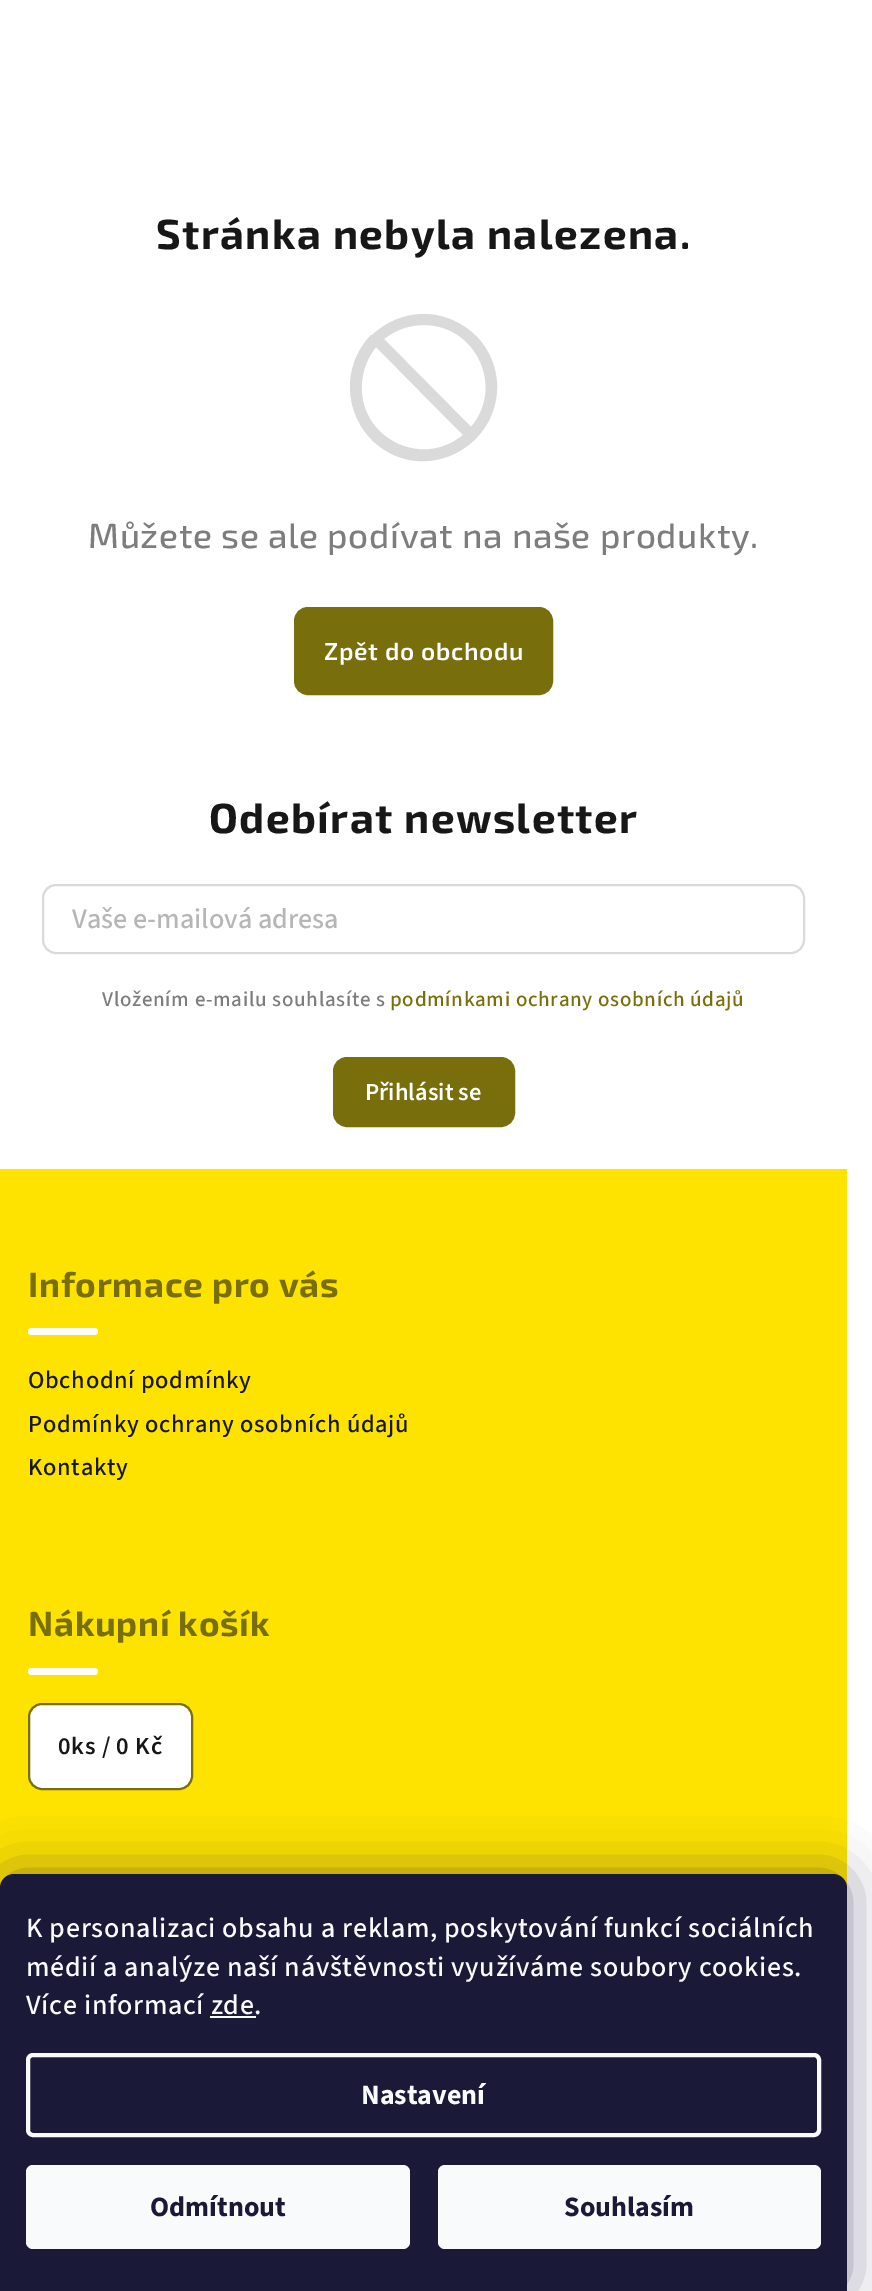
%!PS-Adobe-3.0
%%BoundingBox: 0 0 872 2291
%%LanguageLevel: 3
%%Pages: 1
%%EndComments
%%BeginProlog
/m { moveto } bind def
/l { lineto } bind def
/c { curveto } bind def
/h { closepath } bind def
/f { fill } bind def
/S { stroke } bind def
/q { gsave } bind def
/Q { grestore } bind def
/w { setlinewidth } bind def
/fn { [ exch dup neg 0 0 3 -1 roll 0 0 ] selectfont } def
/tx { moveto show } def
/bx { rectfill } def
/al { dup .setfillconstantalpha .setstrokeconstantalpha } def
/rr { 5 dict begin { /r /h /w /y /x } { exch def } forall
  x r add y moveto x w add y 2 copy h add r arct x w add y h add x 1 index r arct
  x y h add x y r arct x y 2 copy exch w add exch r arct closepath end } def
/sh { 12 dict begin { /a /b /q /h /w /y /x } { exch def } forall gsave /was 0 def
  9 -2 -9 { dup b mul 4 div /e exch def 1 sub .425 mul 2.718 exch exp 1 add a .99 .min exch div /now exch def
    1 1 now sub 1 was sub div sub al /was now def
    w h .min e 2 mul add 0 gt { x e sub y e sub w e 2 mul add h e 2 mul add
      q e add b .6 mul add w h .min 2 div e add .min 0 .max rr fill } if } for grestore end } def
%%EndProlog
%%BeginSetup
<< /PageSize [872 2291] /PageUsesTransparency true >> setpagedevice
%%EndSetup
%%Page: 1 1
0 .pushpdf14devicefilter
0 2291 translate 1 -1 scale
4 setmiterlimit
1 setgray
0 0 872 2291 bx
/Exo2-Bold 42 fn
0.09 setgray
156 249 m 1.4 0 (Stránka nebyla nalezena.) ashow
0.855 setgray
424 314 m 404 314 386 322 372 335 c 371 335 l 342 365 343 413 374 442 c 424 487 500 447 497 383 c 496 366 489 350 478 338 c 464 323 444 314 424 314 c h 424 325 m 476 325 505 387 471 427 c 384 339 l 395 330 409 325 424 325 c h 376 347 m 463 435 l 421 470 357 437 362 382 c 363 369 368 357 376 347 c h f
/Exo2-Medium 35 fn
0.49 setgray
88 548 m 0.7 0 (Můžete se ale podívat na naše produkty.) ashow
0.475 0.431 0.047 setrgbcolor
295 608 257 86 13 rr q f Q
2 w
S
/Exo2-SemiBold 24.5 fn
1 setgray
324 660 m 0.7 0 (Zpět do obchodu) ashow
/Exo2-Bold 42 fn
0.09 setgray
209 833 m 1.4 0 (Odebírat newsletter) ashow
0.855 setgray
43 885 761 68 13 rr S
/SourceSans3-Medium 28.25 fn
0.714 setgray
(Vaše e-mailová adresa) 72 928 tx
/SourceSans3-Medium 21 fn
0.49 setgray
102 1006 m 0.7 0 (Vložením e-mailu souhlasíte s) ashow
0.475 0.431 0.047 setrgbcolor
390 1006 m 0.7 0 (podmínkami ochrany osobních údajů) ashow
334 1058 180 68 13 rr q f Q
S
/SourceSans3-SemiBold 24.5 fn
1 setgray
(Přihlásit se) 365 1100 tx
0.996 0.89 0.004 setrgbcolor
0 1169 847 719 bx
/Exo2-Bold 35 fn
0.475 0.431 0.047 setrgbcolor
28 1297 m 0.7 0 (Informace pro vás) ashow
1 setgray
28 1328 70 7 3.5 rr f
/SourceSans3-Medium 24.5 fn
0.09 setgray
28 1388 m 0.7 0 (Obchodní podmínky) ashow
28 1432 m 0.7 0 (Podmínky ochrany osobních údajů) ashow
28 1475 m 0.7 0 (Kontakty) ashow
/Exo2-Bold 35 fn
0.475 0.431 0.047 setrgbcolor
28 1636 m 0.7 0 (Nákupní košík) ashow
1 setgray
28 1668 70 7 3.5 rr f
29 1704 163 85 13 rr q f Q
0.475 0.431 0.047 setrgbcolor
S
/SourceSans3-SemiBold 24.5 fn
0.09 setgray
58 1754 m 0.7 0 (0ks / 0 Kč) ashow
0.106 0.098 0.224 setrgbcolor
0 1874 847 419 14 26 0.5 sh
0.102 0.098 0.216 setrgbcolor
14 1874 m 833 1874 l 840.5 1874 847 1880.5 847 1888 c 847 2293 l 0 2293 l 0 1888 l 0 1880.5 6.5 1874 14 1874 c h f
/SourceSans3-Medium 28 fn
0.973 0.98 0.984 setrgbcolor
26 1937 m 0.7 0 (K personalizaci obsahu a reklam, poskytování funkcí sociálních) ashow
26 1976 m 0.7 0 (médií a analýze naší návštěvnosti využíváme soubory cookies.) ashow
26 2014 m 0.7 0 (Více informací zde.) ashow
210 2016 46 2 bx
4 w
28 2055 791 80 5 rr S
/SourceSans3-Bold 28 fn
(Nastavení) 361 2104 tx
26 2165 384 84 7 rr f
0.102 0.098 0.216 setrgbcolor
(Odmítnout) 150 2216 tx
0.973 0.98 0.984 setrgbcolor
438 2165 383 84 7 rr f
0.102 0.098 0.216 setrgbcolor
(Souhlasím) 564 2216 tx
.poppdf14devicefilter showpage
%%EOF
